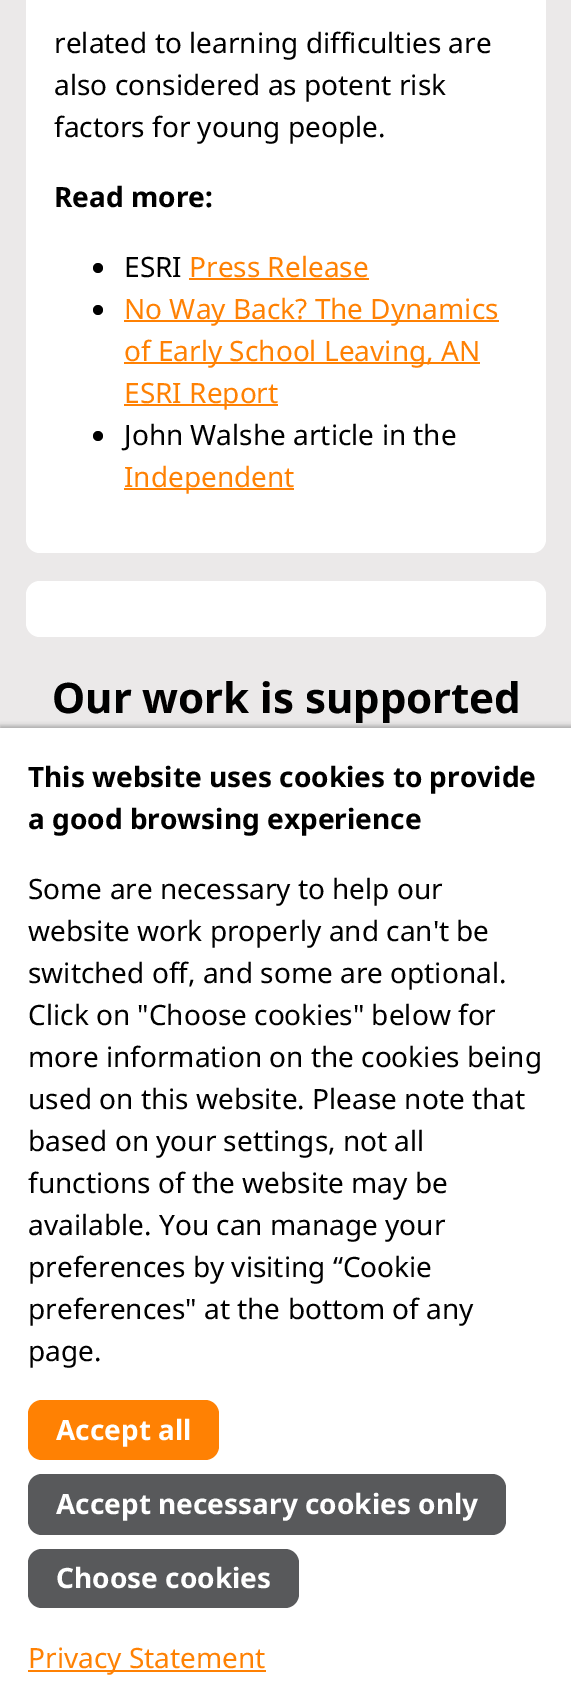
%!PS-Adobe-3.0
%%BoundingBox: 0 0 571 1706
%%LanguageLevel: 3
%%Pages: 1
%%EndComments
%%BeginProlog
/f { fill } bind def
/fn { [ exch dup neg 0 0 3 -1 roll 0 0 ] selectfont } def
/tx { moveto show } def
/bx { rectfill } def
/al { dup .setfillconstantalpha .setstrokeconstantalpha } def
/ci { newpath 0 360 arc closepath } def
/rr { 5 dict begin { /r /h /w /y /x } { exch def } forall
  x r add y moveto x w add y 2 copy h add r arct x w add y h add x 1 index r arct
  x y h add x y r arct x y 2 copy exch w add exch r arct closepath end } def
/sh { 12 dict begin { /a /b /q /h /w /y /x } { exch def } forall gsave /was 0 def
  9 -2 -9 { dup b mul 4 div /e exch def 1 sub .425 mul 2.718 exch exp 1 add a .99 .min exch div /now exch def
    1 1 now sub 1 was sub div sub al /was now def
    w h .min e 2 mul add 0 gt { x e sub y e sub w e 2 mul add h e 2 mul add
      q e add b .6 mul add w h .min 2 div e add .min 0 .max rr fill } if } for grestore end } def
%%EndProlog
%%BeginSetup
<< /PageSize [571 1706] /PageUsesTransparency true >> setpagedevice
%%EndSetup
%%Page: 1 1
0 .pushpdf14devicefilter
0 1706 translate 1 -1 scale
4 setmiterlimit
0.922 0.914 0.914 setrgbcolor
0 0 571 1706 bx
1 setgray
26 -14 520 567 14 rr f
/NotoSans-Regular 28 fn
0 setgray
(related to learning difficulties are) 54 53 tx
(also considered as potent risk) 54 95 tx
(factors for young people.) 54 137 tx
/NotoSans-Bold 28 fn
(Read more:) 54 207 tx
98 268 5 ci f
/NotoSans-Regular 28 fn
(ESRI) 124 277 tx
1 0.506 0.012 setrgbcolor
(Press Release) 189 277 tx
189 278 180 2 bx
0 setgray
98 310 5 ci f
1 0.506 0.012 setrgbcolor
124 320 375 2 bx
(No Way Back? The Dynamics) 124 319 tx
124 362 356 2 bx
(of Early School Leaving, AN) 124 361 tx
124 404 154 2 bx
(ESRI Report) 124 403 tx
0 setgray
98 436 5 ci f
(John Walshe article in the) 124 445 tx
1 0.506 0.012 setrgbcolor
124 488 170 2 bx
(Independent) 124 487 tx
1 setgray
26 581 520 56 14 rr f
/NotoSans-Bold 42 fn
0 setgray
(Our work is supported) 52 713 tx
0 726 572 979 0 2.5 0.3 sh
1 setgray
0 728 571 978 bx
/NotoSans-Bold 28 fn
0 setgray
(This website uses cookies to provide) 28 787 tx
(a good browsing experience) 28 829 tx
/NotoSans-Regular 28 fn
(Some are necessary to help our) 28 899 tx
(website work properly and can't be) 28 941 tx
(switched off, and some are optional.) 28 983 tx
(Click on "Choose cookies" below for) 28 1025 tx
(more information on the cookies being) 28 1067 tx
(used on this website. Please note that) 28 1109 tx
(based on your settings, not all) 28 1151 tx
(functions of the website may be) 28 1193 tx
(available. You can manage your) 28 1235 tx
(preferences by visiting “Cookie) 28 1277 tx
(preferences" at the bottom of any) 28 1319 tx
(page.) 28 1361 tx
1 0.506 0.012 setrgbcolor
28 1400 191 60 14 rr f
/NotoSans-Bold 28 fn
1 setgray
(Accept all) 56 1440 tx
0.345 0.349 0.357 setrgbcolor
28 1474 478 61 14 rr f
1 setgray
(Accept necessary cookies only) 56 1514 tx
0.345 0.349 0.357 setrgbcolor
28 1549 271 59 14 rr f
1 setgray
(Choose cookies) 56 1588 tx
1 0.506 0.012 setrgbcolor
28 1670 238 2 bx
/NotoSans-Regular 28 fn
(Privacy Statement) 28 1668 tx
.poppdf14devicefilter showpage
%%EOF
